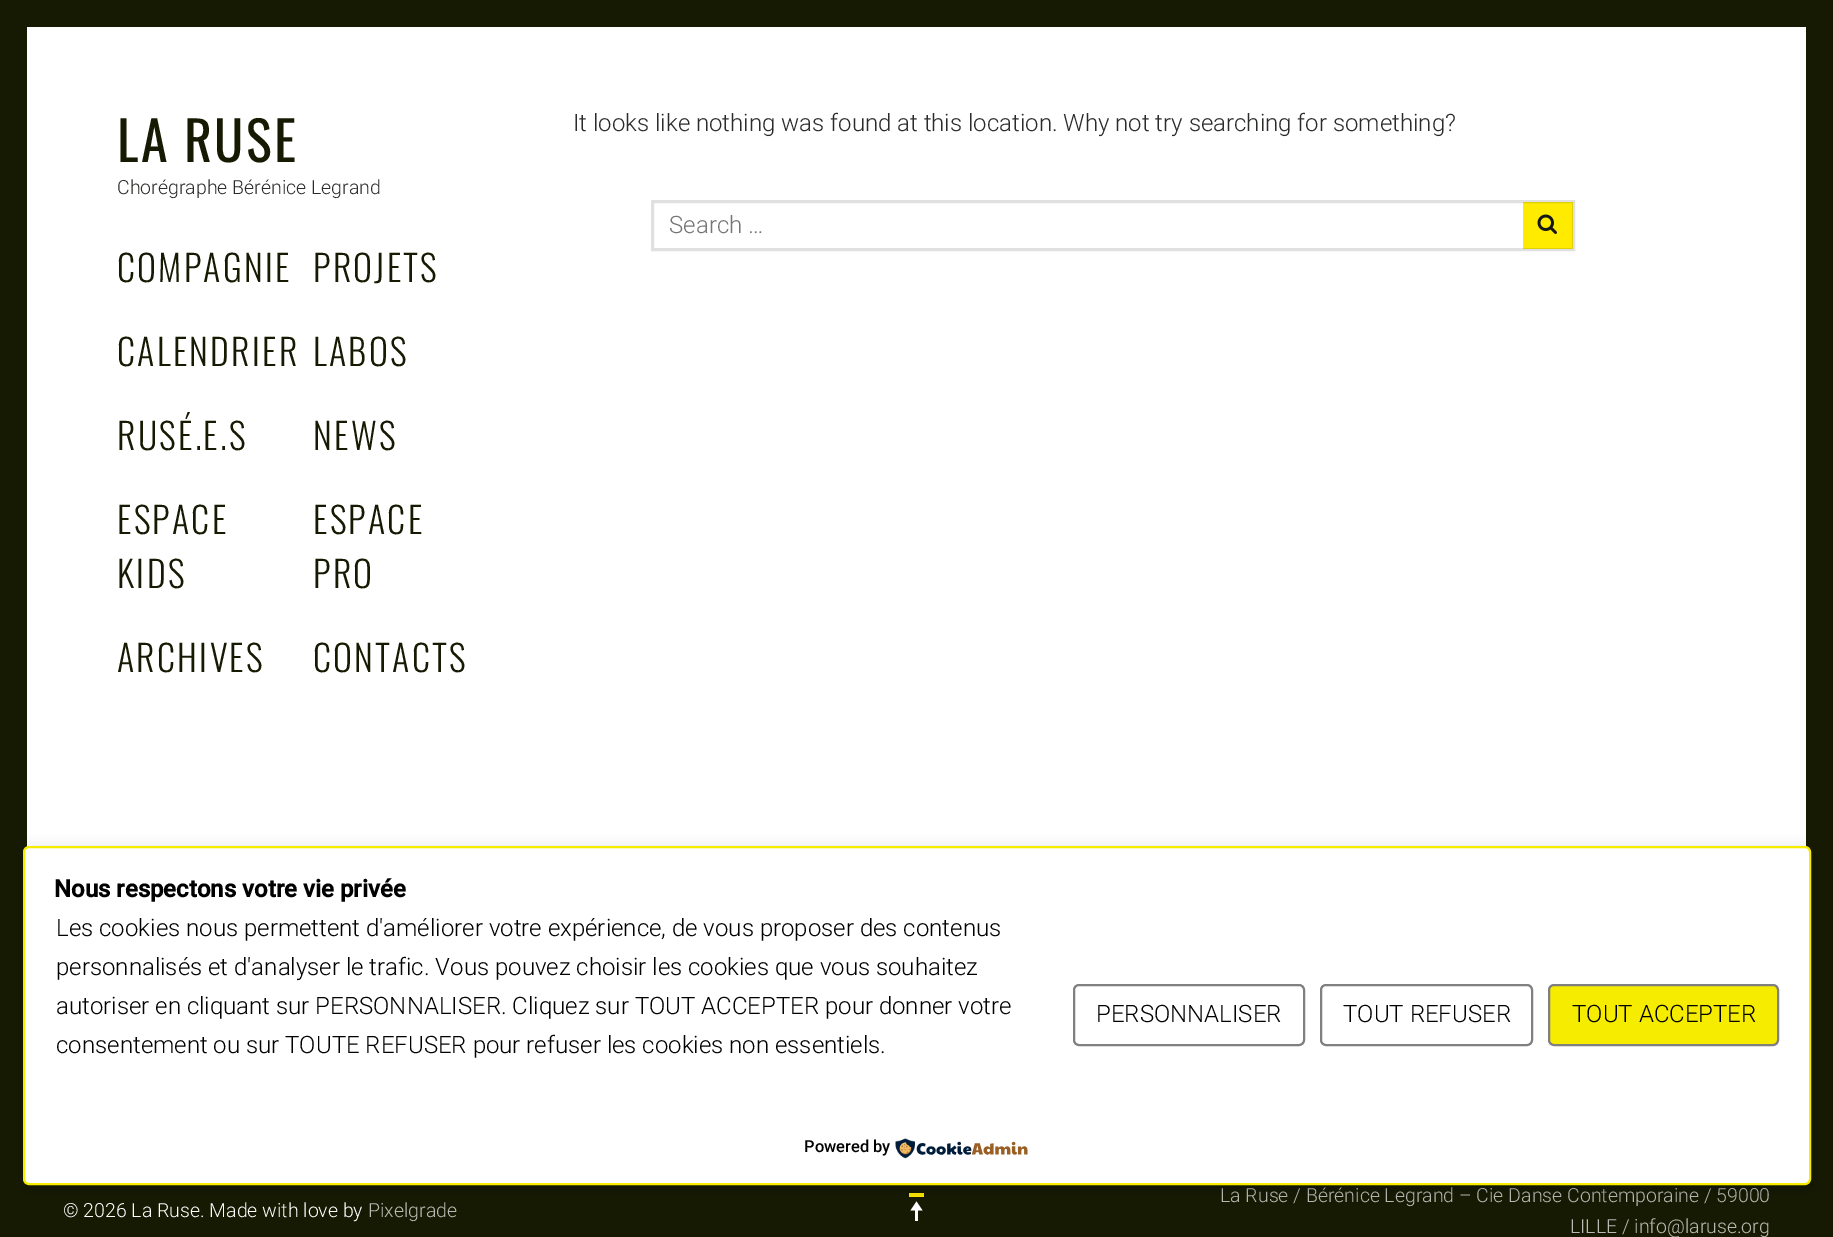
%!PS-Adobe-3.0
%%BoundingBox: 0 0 1833 1237
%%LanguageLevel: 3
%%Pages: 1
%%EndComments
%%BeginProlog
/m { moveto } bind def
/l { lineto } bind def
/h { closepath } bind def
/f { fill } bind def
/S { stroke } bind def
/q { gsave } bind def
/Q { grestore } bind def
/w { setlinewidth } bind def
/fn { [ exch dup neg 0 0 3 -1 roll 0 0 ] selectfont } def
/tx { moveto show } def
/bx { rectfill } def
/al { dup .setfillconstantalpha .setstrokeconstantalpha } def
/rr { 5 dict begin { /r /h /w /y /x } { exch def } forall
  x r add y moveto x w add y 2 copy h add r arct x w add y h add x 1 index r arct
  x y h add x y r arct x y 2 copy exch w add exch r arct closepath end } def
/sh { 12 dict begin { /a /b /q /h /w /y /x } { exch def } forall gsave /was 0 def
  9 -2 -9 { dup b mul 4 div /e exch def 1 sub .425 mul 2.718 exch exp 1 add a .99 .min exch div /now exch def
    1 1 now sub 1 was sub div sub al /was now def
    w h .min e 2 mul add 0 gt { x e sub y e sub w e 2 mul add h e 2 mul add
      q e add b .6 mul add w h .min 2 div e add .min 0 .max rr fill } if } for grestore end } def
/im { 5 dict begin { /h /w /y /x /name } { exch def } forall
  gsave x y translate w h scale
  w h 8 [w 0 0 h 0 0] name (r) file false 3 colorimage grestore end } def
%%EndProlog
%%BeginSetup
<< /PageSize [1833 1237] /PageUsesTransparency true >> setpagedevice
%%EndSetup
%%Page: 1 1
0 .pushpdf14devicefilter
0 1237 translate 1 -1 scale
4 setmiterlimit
1 setgray
0 0 1833 1237 bx
0.086 0.102 0.012 setrgbcolor
1806 27 27 1210 bx
0 27 27 1210 bx
0 0 1833 27 bx
/Oswald-Regular 54 fn
117 162 m 2.25 0 (LA RUSE) ashow
/Roboto-Light 19.5 fn
0.165 0.173 0.161 setrgbcolor
(Chorégraphe Bérénice Legrand) 117 194 tx
/Oswald-Light 36 fn
0.086 0.102 0.012 setrgbcolor
117 282 m 2.25 0 (COMPAGNIE) ashow
313 282 m 2.25 0 (PROJETS) ashow
117 366 m 2.25 0 (CALENDRIER) ashow
313 366 m 2.25 0 (LABOS) ashow
117 450 m 2.25 0 (RUSÉ.E.S) ashow
313 450 m 2.25 0 (NEWS) ashow
117 534 m 2.25 0 (ESPACE) ashow
117 588 m 2.25 0 (KIDS) ashow
313 534 m 2.25 0 (ESPACE) ashow
313 588 m 2.25 0 (PRO) ashow
117 672 m 2.25 0 (ARCHIVES) ashow
313 672 m 2.25 0 (CONTACTS) ashow
/Roboto-Light 24 fn
0.165 0.173 0.161 setrgbcolor
(It looks like nothing was found at this location. Why not try searching for something?) 573 131 tx
1 0.922 0 setrgbcolor
1523 202 50 47 bx
(image0.raw) 1537 214 20 20 im
0.15 al
0.165 0.173 0.161 setrgbcolor
3 w
652.5 201.5 921 48 rectstroke
1 al
0.459 setgray
(Search …) 669 233 tx
0.086 0.102 0.012 setrgbcolor
27 1184 1779 53 bx
/Roboto-Light 19.5 fn
1 setgray
(© 2026 La Ruse. Made with love by) 63 1217 tx
0.725 0.729 0.702 setrgbcolor
(Pixelgrade) 368 1217 tx
1 0.922 0 setrgbcolor
909 1193 15 4 bx
1 setgray
916.5 1201.5 m 922.5 1210.5 l 910.5 1210.5 l h 915 1210.5 m 918 1210.5 l 918 1221 l 915 1221 l h eofill
0.725 0.729 0.702 setrgbcolor
(La Ruse / Bérénice Legrand – Cie Danse Contemporaine / 59000) 1220 1202 tx
(LILLE / info@laruse.org) 1570 1233 tx
0 setgray
24 851 1788 339 6 7.5 0.2 sh
1 setgray
24 847 1786 337 5 rr q f Q
0.961 0.925 0 setrgbcolor
2 w
S
/Roboto-Bold 24 fn
0 setgray
(Nous respectons votre vie privée) 54 897 tx
/Roboto-Light 24 fn
(Les cookies nous permettent d'améliorer votre expérience, de vous proposer des contenus) 56 936 tx
(personnalisés et d'analyser le trafic. Vous pouvez choisir les cookies que vous souhaitez) 56 975 tx
(autoriser en cliquant sur PERSONNALISER. Cliquez sur TOUT ACCEPTER pour donner votre) 56 1014 tx
(consentement ou sur TOUTE REFUSER pour refuser les cookies non essentiels.) 56 1053 tx
0.502 setgray
1074 985 230 60 5 rr S
0 setgray
(PERSONNALISER) 1096 1022 tx
0.502 setgray
1321 985 211 60 5 rr S
0 setgray
(TOUT REFUSER) 1343 1022 tx
0.961 0.925 0 setrgbcolor
1549 985 229 60 5 rr q f Q
0.502 setgray
S
0 setgray
(TOUT ACCEPTER) 1572 1022 tx
/Roboto-Medium 16.5 fn
(Powered by) 804 1152 tx
(image1.raw) 895 1138 133 21 im
.poppdf14devicefilter showpage
%%EOF
